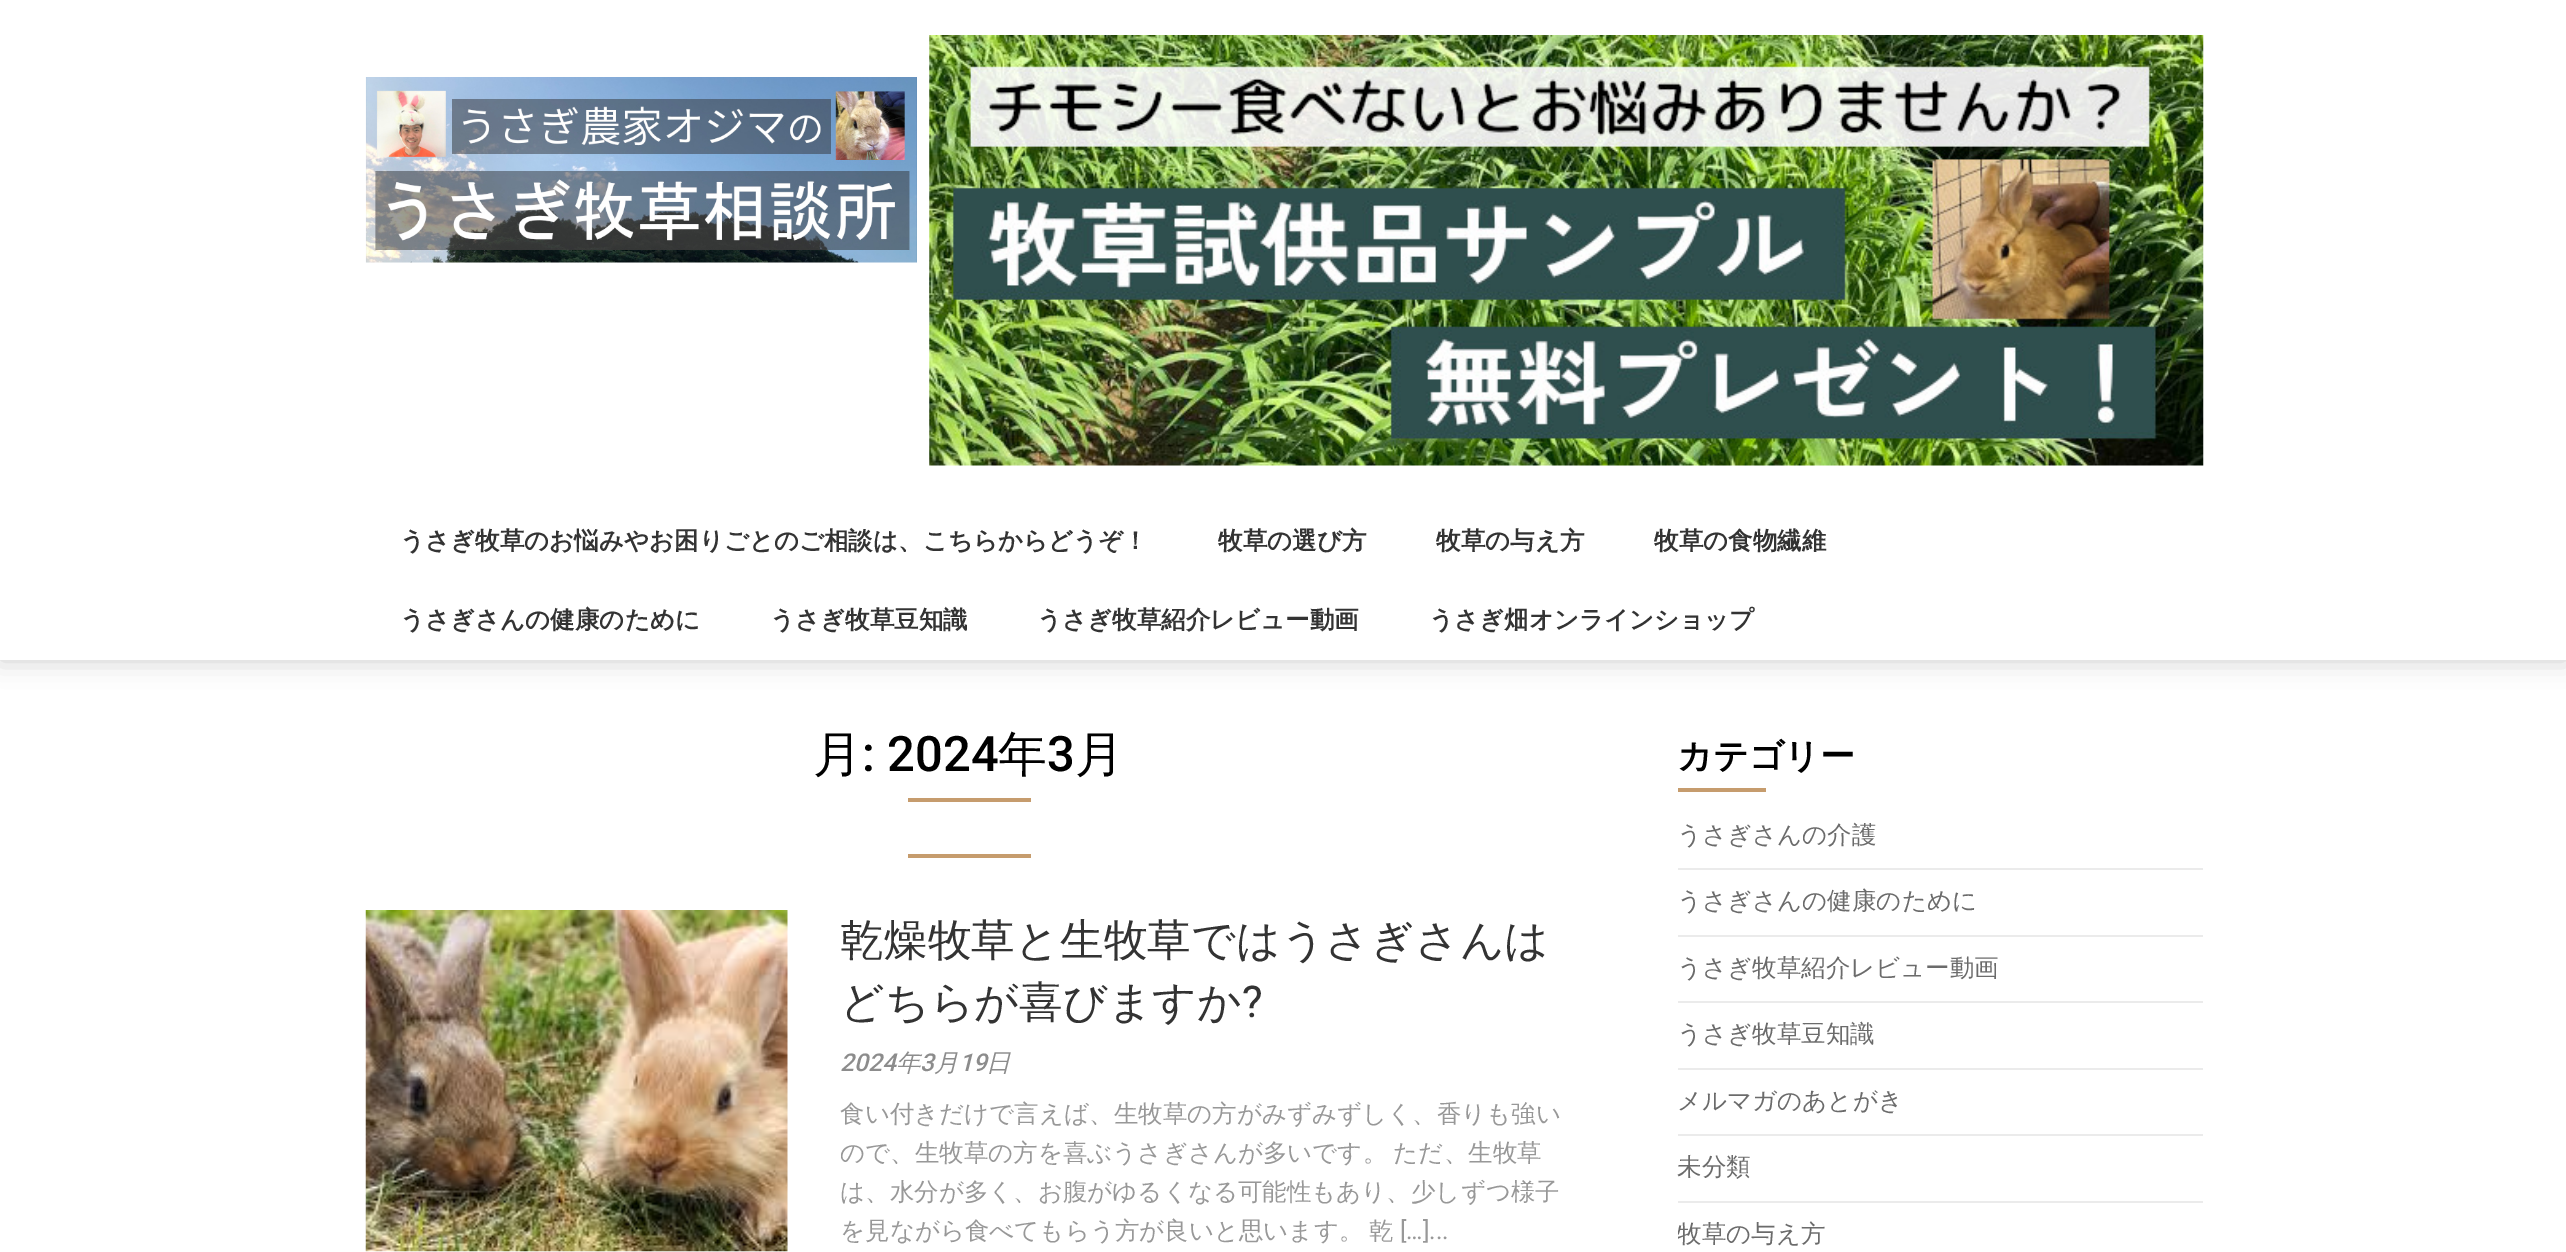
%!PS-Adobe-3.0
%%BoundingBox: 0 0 2566 1252
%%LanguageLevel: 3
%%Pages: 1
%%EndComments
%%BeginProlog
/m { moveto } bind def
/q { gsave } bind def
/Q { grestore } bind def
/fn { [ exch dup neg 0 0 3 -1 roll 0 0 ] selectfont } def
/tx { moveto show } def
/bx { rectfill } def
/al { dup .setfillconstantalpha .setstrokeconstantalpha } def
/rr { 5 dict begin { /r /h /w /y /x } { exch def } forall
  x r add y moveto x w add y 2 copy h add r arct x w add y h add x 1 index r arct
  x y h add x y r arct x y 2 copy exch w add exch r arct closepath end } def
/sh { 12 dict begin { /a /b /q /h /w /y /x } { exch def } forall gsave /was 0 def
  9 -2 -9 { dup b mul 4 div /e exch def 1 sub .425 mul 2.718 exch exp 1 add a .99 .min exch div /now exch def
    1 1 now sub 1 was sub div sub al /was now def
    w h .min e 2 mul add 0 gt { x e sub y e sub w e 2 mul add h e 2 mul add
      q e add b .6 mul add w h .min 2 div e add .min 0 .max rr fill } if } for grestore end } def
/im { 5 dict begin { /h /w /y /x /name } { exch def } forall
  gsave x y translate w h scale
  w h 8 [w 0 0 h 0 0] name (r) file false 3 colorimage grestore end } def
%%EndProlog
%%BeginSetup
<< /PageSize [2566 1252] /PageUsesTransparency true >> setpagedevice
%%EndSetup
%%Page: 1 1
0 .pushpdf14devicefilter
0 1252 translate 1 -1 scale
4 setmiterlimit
1 setgray
0 0 2566 1252 bx
0 setgray
0 0 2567 660 0 13 0.2 sh
1 setgray
0 0 2566 660 bx
(image0.raw) 365 77 552 186 im
(image1.raw) 929 35 1275 431 im
/WenQuanYiZenHei-Bold 24.5 fn
0.2 setgray
(うさぎ牧草のお悩みやお困りごとのご相談は、こちらからどうぞ！) 400 549 tx
(牧草の選び方) 1218 549 tx
(牧草の与え方) 1436 549 tx
(牧草の食物繊維) 1654 549 tx
(うさぎさんの健康のために) 400 628 tx
(うさぎ牧草豆知識) 770 628 tx
(うさぎ牧草紹介レビュー動画) 1037 628 tx
(うさぎ畑オンラインショップ) 1429 628 tx
/WenQuanYiZenHei-Medium 49 fn
0 setgray
(月) 813 771 tx
/Roboto-Medium 49 fn
(: 2024) 862 771 tx
/WenQuanYiZenHei-Medium 49 fn
(年) 998 771 tx
/Roboto-Medium 49 fn
(3) 1047 771 tx
/WenQuanYiZenHei-Medium 49 fn
(月) 1075 771 tx
0.776 0.612 0.427 setrgbcolor
908 798 123 4 bx
908 854 123 4 bx
(image2.raw) 365 910 423 342 im
/WenQuanYiZenHei-Medium 43.75 fn
0.2 setgray
(乾燥牧草と生牧草ではうさぎさんは) 840 955 tx
(どちらが喜びますか) 840 1017 tx
/Roboto-Regular 43.75 fn
(?) 1242 1017 tx
/Roboto-MediumItalic 24.5 fn
0.549 setgray
(2024) 840 1071 tx
/WenQuanYiZenHei-MediumItalic 24.5 fn
(年) 896 1071 tx
/Roboto-MediumItalic 24.5 fn
(3) 920 1071 tx
/WenQuanYiZenHei-MediumItalic 24.5 fn
(月) 934 1071 tx
/Roboto-MediumItalic 24.5 fn
(19) 959 1071 tx
/WenQuanYiZenHei-MediumItalic 24.5 fn
(日) 986 1071 tx
/WenQuanYiZenHei-Medium 24.5 fn
0.596 setgray
(食い付きだけで言えば、生牧草の方がみずみずしく、香りも強い) 840 1122 tx
840 1161 m -1 0 32 (ので、生牧草の方を喜ぶうさぎさんが多いです。 ただ、生牧草) widthshow
(は、水分が多く、お腹がゆるくなる可能性もあり、少しずつ様子) 840 1200 tx
840 1239 m -1 0 32 (を見ながら食べてもらう方が良いと思います。 乾) widthshow
/Roboto-Regular 24.5 fn
([…]...) 1400 1239 tx
/WenQuanYiZenHei-Bold 35 fn
0 setgray
(カテゴリー) 1677 768 tx
0.776 0.612 0.427 setrgbcolor
1678 788 88 4 bx
0.922 setgray
1678 868 525 2 bx
/WenQuanYiZenHei-Medium 24.5 fn
0.42 setgray
(うさぎさんの介護) 1677 843 tx
0.922 setgray
1678 935 525 2 bx
0.42 setgray
(うさぎさんの健康のために) 1677 909 tx
0.922 setgray
1678 1001 525 2 bx
0.42 setgray
(うさぎ牧草紹介レビュー動画) 1677 976 tx
0.922 setgray
1678 1068 525 2 bx
0.42 setgray
(うさぎ牧草豆知識) 1677 1042 tx
0.922 setgray
1678 1134 525 2 bx
0.42 setgray
(メルマガのあとがき) 1677 1109 tx
0.922 setgray
1678 1201 525 2 bx
0.42 setgray
(未分類) 1677 1175 tx
q
1678 739 525 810 rectclip
(牧草の与え方) 1677 1242 tx
Q
.poppdf14devicefilter showpage
%%EOF
